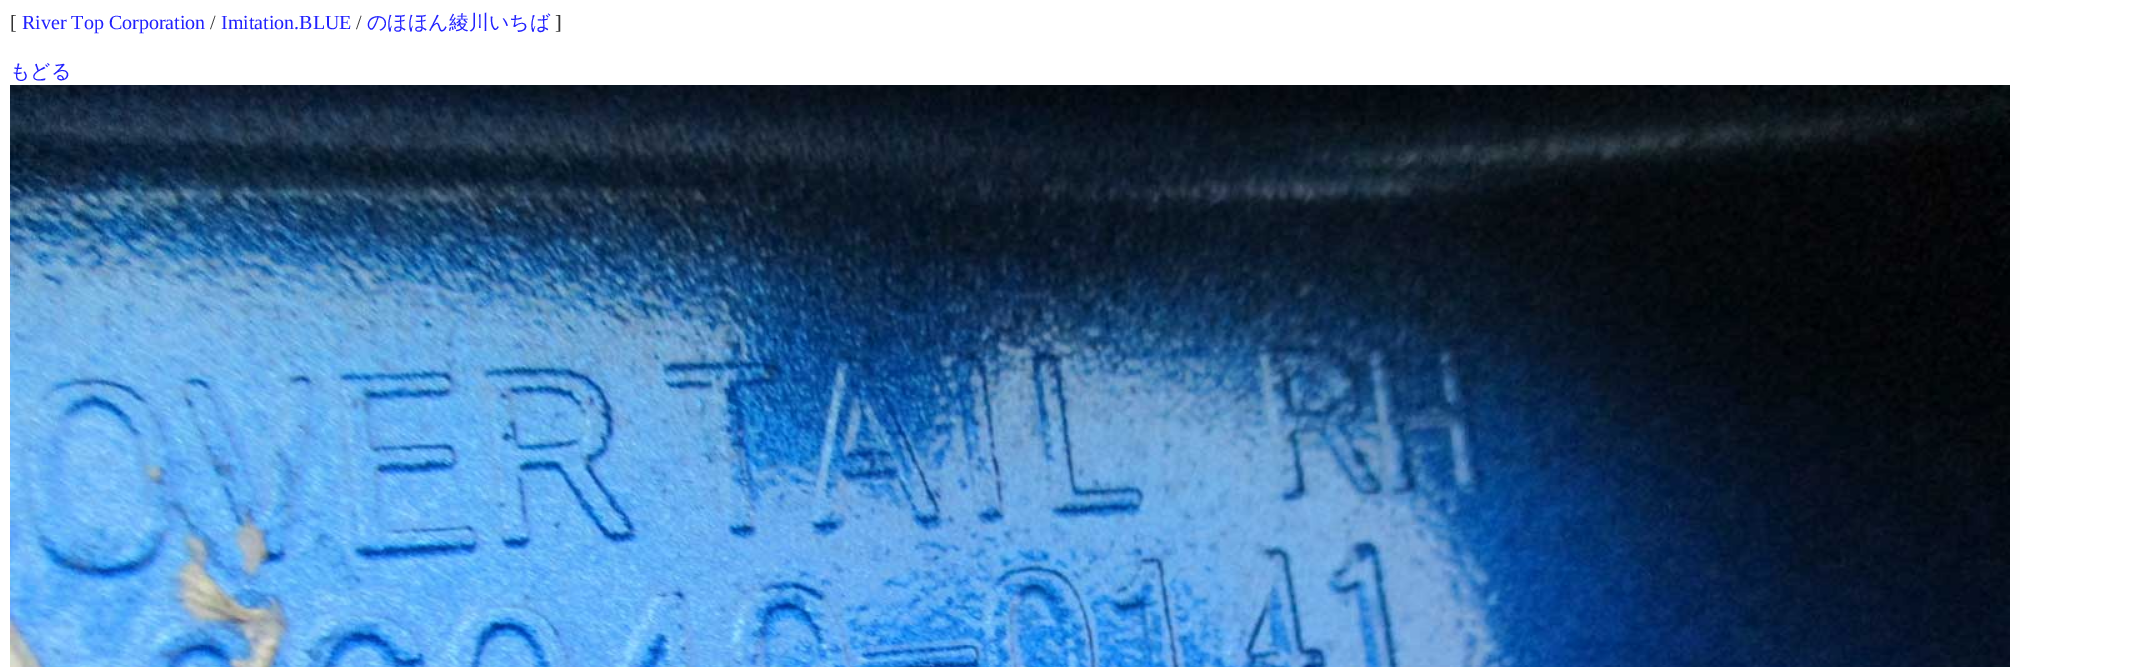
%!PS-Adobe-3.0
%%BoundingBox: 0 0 2140 667
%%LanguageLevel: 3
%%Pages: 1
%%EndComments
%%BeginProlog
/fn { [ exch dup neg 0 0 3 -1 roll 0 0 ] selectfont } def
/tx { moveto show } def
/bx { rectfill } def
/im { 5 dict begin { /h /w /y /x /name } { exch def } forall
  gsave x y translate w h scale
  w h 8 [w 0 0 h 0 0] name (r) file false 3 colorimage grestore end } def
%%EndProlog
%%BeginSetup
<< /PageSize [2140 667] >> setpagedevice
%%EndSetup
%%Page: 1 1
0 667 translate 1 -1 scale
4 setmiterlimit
1 setgray
0 0 2140 667 bx
/LiberationSerif-Regular 20 fn
0.2 setgray
([) 10 29 tx
0.133 0.133 1 setrgbcolor
(River Top Corporation) 22 29 tx
0.2 setgray
(/) 210 29 tx
0.133 0.133 1 setrgbcolor
(Imitation.BLUE) 221 29 tx
0.2 setgray
(/) 356 29 tx
/WenQuanYiZenHei-Medium 20 fn
0.133 0.133 1 setrgbcolor
(のほほん綾川いちば) 367 29 tx
/LiberationSerif-Regular 20 fn
0.2 setgray
(]) 555 29 tx
/WenQuanYiZenHei-Medium 20 fn
0.133 0.133 1 setrgbcolor
(もどる) 10 78 tx
(image0.raw) 10 85 2000 582 im
showpage
%%EOF
